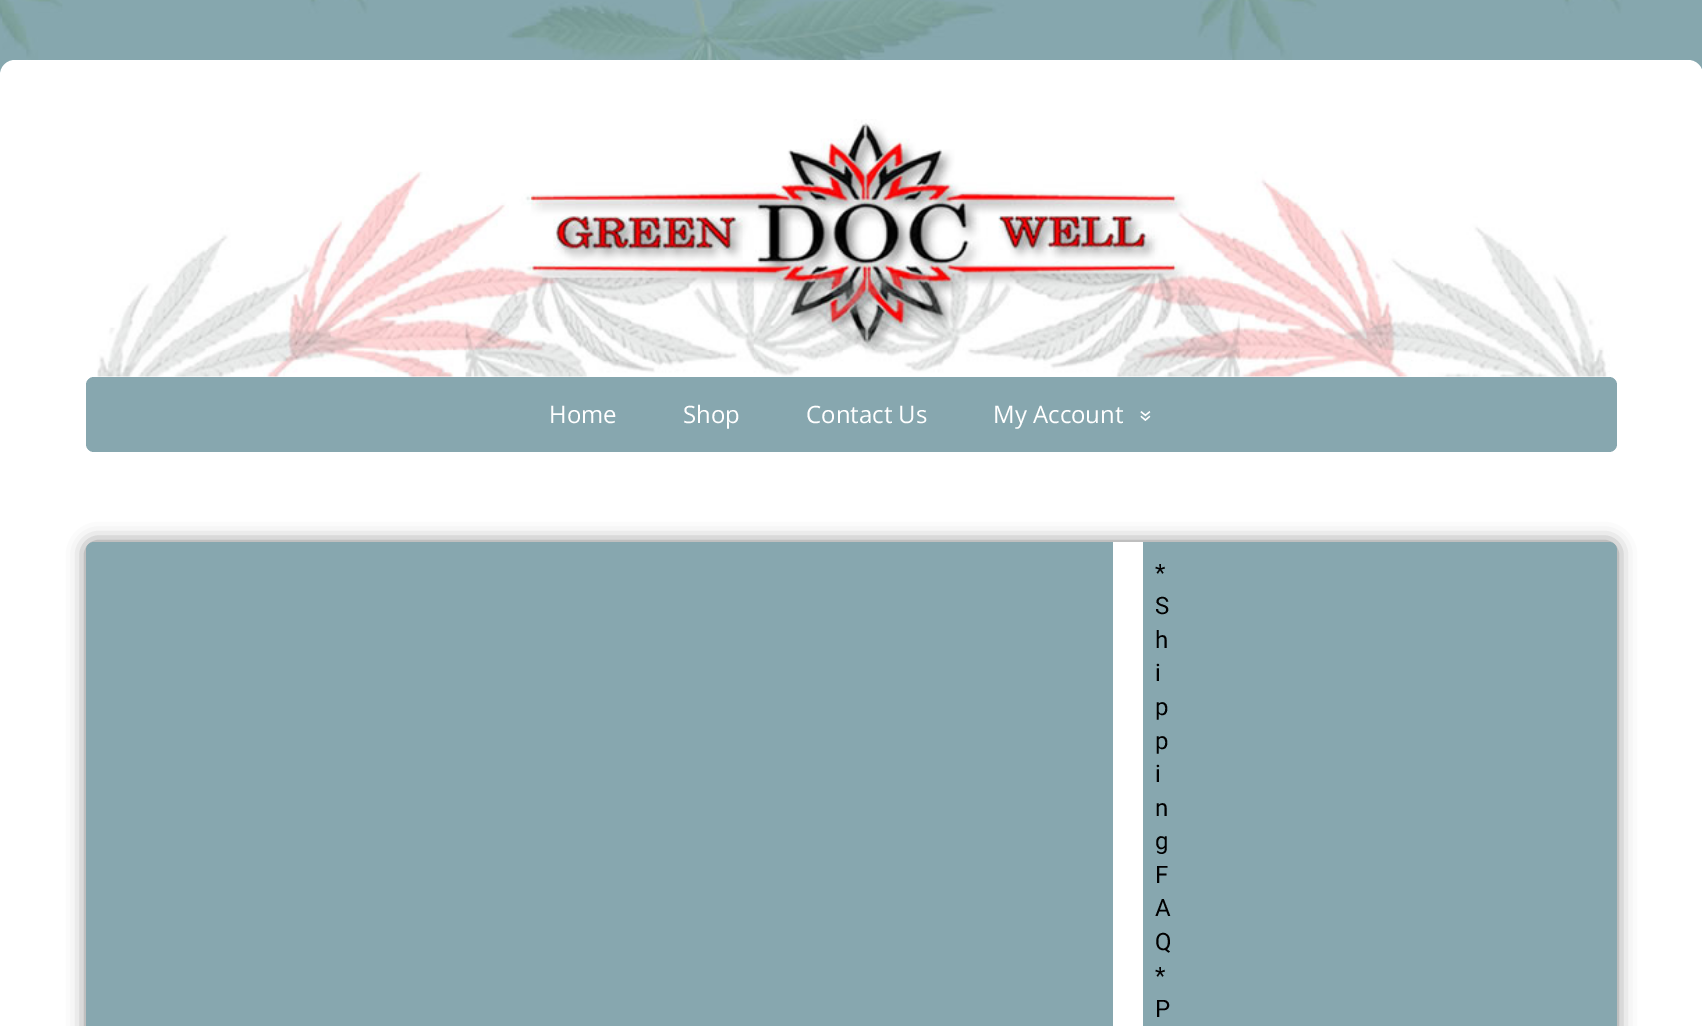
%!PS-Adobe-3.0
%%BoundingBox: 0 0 1702 1026
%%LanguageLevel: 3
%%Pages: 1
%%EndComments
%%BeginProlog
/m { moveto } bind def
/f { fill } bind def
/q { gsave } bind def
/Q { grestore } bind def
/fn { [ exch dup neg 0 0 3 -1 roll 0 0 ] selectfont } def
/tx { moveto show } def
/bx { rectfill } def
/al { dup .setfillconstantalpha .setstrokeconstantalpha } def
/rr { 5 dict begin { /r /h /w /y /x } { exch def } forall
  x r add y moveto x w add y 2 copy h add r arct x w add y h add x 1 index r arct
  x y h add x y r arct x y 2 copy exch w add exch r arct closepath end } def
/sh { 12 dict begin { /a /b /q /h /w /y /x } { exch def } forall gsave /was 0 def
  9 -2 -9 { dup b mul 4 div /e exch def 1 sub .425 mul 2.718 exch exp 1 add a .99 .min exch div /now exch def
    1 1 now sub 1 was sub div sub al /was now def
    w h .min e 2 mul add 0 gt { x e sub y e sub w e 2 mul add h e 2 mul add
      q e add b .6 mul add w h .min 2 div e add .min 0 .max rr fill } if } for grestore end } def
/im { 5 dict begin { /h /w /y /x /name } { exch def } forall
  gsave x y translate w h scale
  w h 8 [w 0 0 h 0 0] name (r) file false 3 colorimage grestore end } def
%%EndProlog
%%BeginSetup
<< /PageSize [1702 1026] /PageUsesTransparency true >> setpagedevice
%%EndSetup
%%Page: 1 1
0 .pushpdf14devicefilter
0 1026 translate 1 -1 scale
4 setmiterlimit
1 setgray
0 0 1702 1026 bx
(image0.raw) 0 0 1702 75 im
0 60 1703 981 15 rr f
(image1.raw) 97 119 1513 258 im
0.529 0.655 0.686 setrgbcolor
86 377 1531 75 8 rr f
/OpenSans-Regular 24 fn
1 setgray
(Home) 549 423 tx
(Shop) 683 423 tx
(Contact Us) 806 423 tx
(My Account) 993 423 tx
q 1139 410 translate 90 rotate 0 0 m (») show Q
0 setgray
86 542 1531 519 8 9 0.5 sh
0.529 0.655 0.686 setrgbcolor
86 542 1531 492 8 rr f
1 setgray
1113 542 30 484 bx
/Roboto-Regular 24 fn
0 setgray
(*) 1155 581 tx
(S) 1155 614 tx
(h) 1155 648 tx
(i) 1155 681 tx
(p) 1155 715 tx
(p) 1155 749 tx
(i) 1155 782 tx
(n) 1155 816 tx
(g) 1155 849 tx
(F) 1155 883 tx
(A) 1155 916 tx
(Q) 1155 950 tx
(*) 1155 984 tx
(P) 1155 1017 tx
.poppdf14devicefilter showpage
%%EOF
